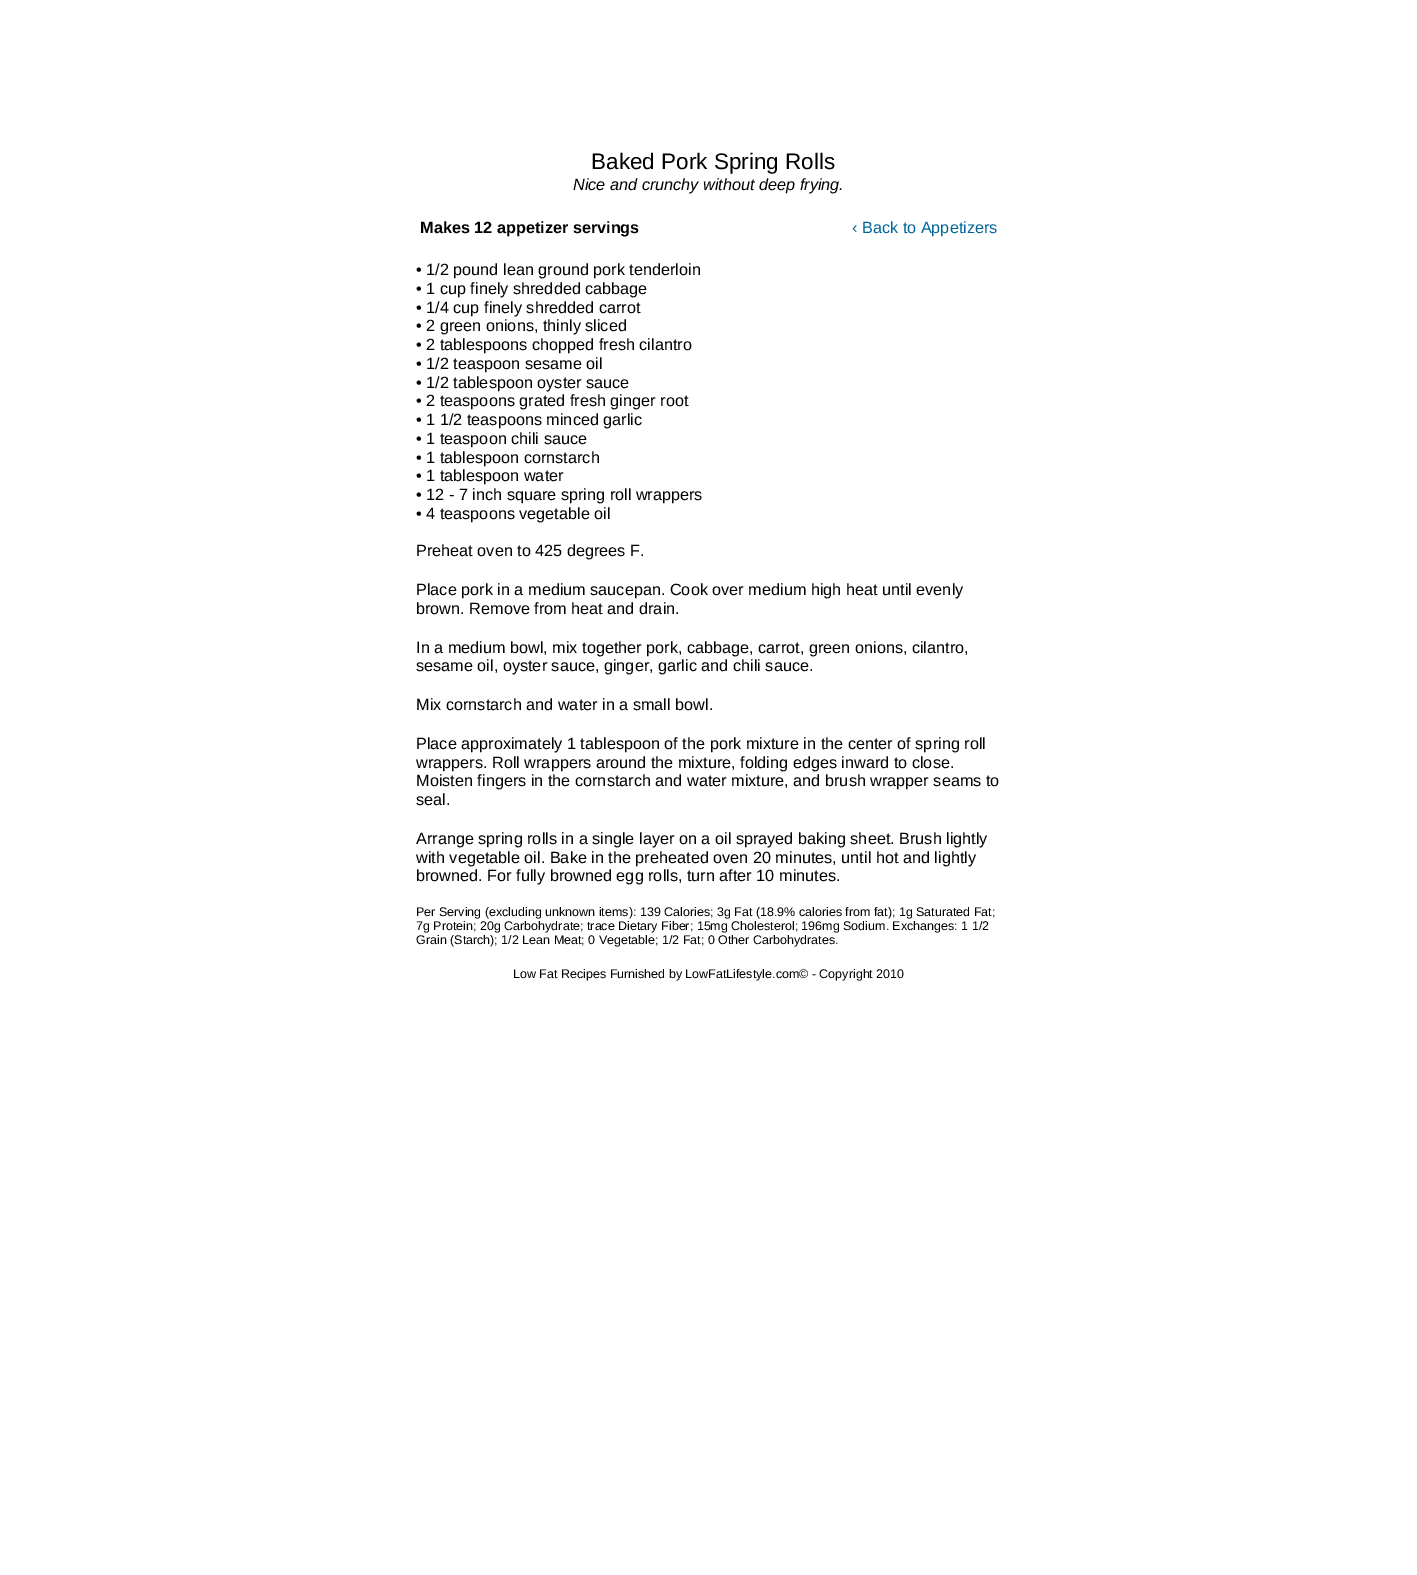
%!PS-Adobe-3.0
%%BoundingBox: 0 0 1417 1575
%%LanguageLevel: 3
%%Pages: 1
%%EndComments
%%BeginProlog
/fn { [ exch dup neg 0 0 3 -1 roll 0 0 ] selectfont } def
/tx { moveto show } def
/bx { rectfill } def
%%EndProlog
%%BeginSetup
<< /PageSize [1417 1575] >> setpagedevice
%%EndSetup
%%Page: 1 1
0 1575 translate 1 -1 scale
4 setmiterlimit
1 setgray
0 0 1417 1575 bx
/LiberationSans-Regular 22.5 fn
0 setgray
(Baked Pork Spring Rolls) 591 169 tx
/LiberationSans-Italic 16.25 fn
(Nice and crunchy without deep frying.) 573 190 tx
/LiberationSans-Bold 16.25 fn
(Makes 12 appetizer servings) 420 233 tx
/LiberationSans-Regular 16.25 fn
0 0.4 0.6 setrgbcolor
(‹ Back to Appetizers) 852 233 tx
0 setgray
(• 1/2 pound lean ground pork tenderloin) 416 275 tx
(• 1 cup finely shredded cabbage) 416 294 tx
(• 1/4 cup finely shredded carrot) 416 313 tx
(• 2 green onions, thinly sliced) 416 331 tx
(• 2 tablespoons chopped fresh cilantro) 416 350 tx
(• 1/2 teaspoon sesame oil) 416 369 tx
(• 1/2 tablespoon oyster sauce) 416 388 tx
(• 2 teaspoons grated fresh ginger root) 416 406 tx
(• 1 1/2 teaspoons minced garlic) 416 425 tx
(• 1 teaspoon chili sauce) 416 444 tx
(• 1 tablespoon cornstarch) 416 463 tx
(• 1 tablespoon water) 416 481 tx
(• 12 - 7 inch square spring roll wrappers) 416 500 tx
(• 4 teaspoons vegetable oil) 416 519 tx
(Preheat oven to 425 degrees F.) 416 556 tx
(Place pork in a medium saucepan. Cook over medium high heat until evenly) 416 595 tx
(brown. Remove from heat and drain.) 416 614 tx
(In a medium bowl, mix together pork, cabbage, carrot, green onions, cilantro,) 416 653 tx
(sesame oil, oyster sauce, ginger, garlic and chili sauce.) 416 671 tx
(Mix cornstarch and water in a small bowl.) 416 710 tx
(Place approximately 1 tablespoon of the pork mixture in the center of spring roll) 416 749 tx
(wrappers. Roll wrappers around the mixture, folding edges inward to close.) 416 768 tx
(Moisten fingers in the cornstarch and water mixture, and brush wrapper seams to) 416 786 tx
(seal.) 416 805 tx
(Arrange spring rolls in a single layer on a oil sprayed baking sheet. Brush lightly) 416 844 tx
(with vegetable oil. Bake in the preheated oven 20 minutes, until hot and lightly) 416 863 tx
(browned. For fully browned egg rolls, turn after 10 minutes.) 416 881 tx
/LiberationSans-Regular 12.5 fn
(Per Serving \(excluding unknown items\): 139 Calories; 3g Fat \(18.9% calories from fat\); 1g Saturated Fat;) 416 916 tx
(7g Protein; 20g Carbohydrate; trace Dietary Fiber; 15mg Cholesterol; 196mg Sodium. Exchanges: 1 1/2) 416 930 tx
(Grain \(Starch\); 1/2 Lean Meat; 0 Vegetable; 1/2 Fat; 0 Other Carbohydrates.) 416 944 tx
(Low Fat Recipes Furnished by LowFatLifestyle.com© - Copyright 2010) 513 978 tx
showpage
%%EOF
